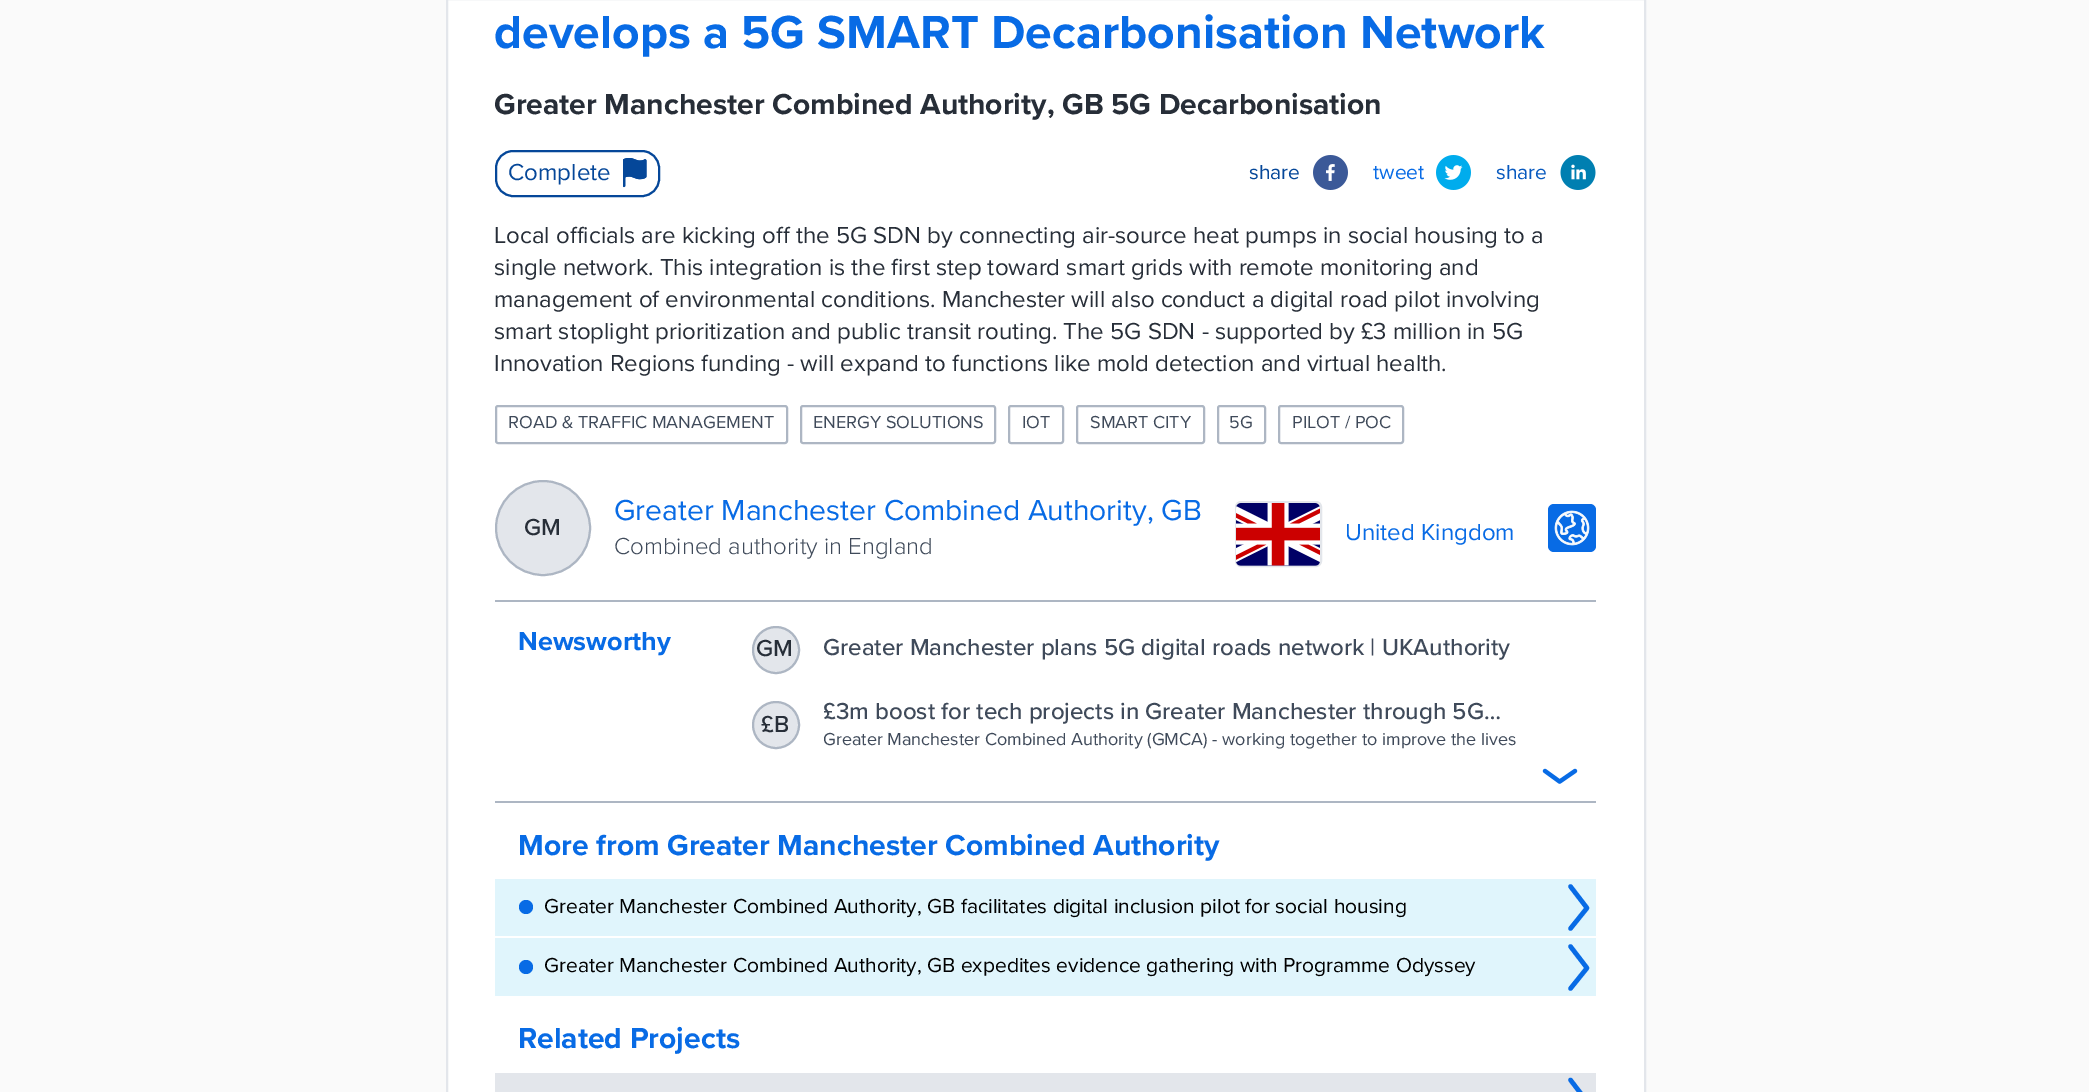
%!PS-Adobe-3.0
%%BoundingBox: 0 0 2089 1092
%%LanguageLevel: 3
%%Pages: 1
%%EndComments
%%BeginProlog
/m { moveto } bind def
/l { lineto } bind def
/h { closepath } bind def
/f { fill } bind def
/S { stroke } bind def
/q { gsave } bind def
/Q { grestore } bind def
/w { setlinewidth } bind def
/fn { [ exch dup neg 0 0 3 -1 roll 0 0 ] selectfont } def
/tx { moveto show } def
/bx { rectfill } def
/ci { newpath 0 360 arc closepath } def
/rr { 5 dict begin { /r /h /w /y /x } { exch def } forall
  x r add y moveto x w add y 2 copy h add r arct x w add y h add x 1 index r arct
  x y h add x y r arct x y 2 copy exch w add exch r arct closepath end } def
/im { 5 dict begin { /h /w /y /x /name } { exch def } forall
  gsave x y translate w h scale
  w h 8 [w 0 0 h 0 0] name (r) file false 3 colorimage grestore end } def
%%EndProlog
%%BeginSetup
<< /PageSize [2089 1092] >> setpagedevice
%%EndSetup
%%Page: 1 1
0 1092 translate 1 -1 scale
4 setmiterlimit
0.98 setgray
0 0 2089 1092 bx
1 setgray
447 -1 m 1645 -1 l 1645 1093 l 447 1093 l h q f Q
0.89 0.902 0.922 setrgbcolor
2 w
S
/ProximaNova-Bold 48 fn
0.031 0.42 0.898 setrgbcolor
(develops a 5G SMART Decarbonisation Network) 494 48 tx
/ProximaNova-Bold 30 fn
0.153 0.18 0.22 setrgbcolor
(Greater Manchester Combined Authority, GB 5G Decarbonisation) 494 114 tx
0.02 0.278 0.6 setrgbcolor
496 151 163 45 17 rr S
/ProximaNova-Regular 24 fn
(Complete) 508 180 tx
(image0.raw) 623 158 24 30 im
/ProximaNova-Regular 21 fn
(share) 1249 179 tx
(image1.raw) 1313 155 35 35 im
0.031 0.42 0.898 setrgbcolor
(tweet) 1373 179 tx
(image2.raw) 1436 155 35 35 im
0.027 0.349 0.749 setrgbcolor
(share) 1496 179 tx
(image3.raw) 1560 155 36 35 im
/ProximaNova-Regular 24 fn
0.153 0.18 0.22 setrgbcolor
(Local officials are kicking off the 5G SDN by connecting air-source heat pumps in social housing to a) 494 243 tx
(single network. This integration is the first step toward smart grids with remote monitoring and) 494 275 tx
(management of environmental conditions. Manchester will also conduct a digital road pilot involving) 494 307 tx
(smart stoplight prioritization and public transit routing. The 5G SDN - supported by £3 million in 5G) 494 339 tx
(Innovation Regions funding - will expand to functions like mold detection and virtual health.) 494 371 tx
0.678 0.714 0.765 setrgbcolor
496 406 291 37 2 rr S
/ProximaNova-Regular 18 fn
0.247 0.29 0.353 setrgbcolor
(ROAD & TRAFFIC MANAGEMENT) 508 428 tx
0.678 0.714 0.765 setrgbcolor
801 406 194 37 2 rr S
0.247 0.29 0.353 setrgbcolor
(ENERGY SOLUTIONS) 813 428 tx
0.678 0.714 0.765 setrgbcolor
1009 406 54 37 2 rr S
0.247 0.29 0.353 setrgbcolor
(IOT) 1022 428 tx
0.678 0.714 0.765 setrgbcolor
1077 406 127 37 2 rr S
0.247 0.29 0.353 setrgbcolor
(SMART CITY) 1090 428 tx
0.678 0.714 0.765 setrgbcolor
1218 406 47 37 2 rr S
0.247 0.29 0.353 setrgbcolor
(5G) 1229 428 tx
0.678 0.714 0.765 setrgbcolor
1279 406 124 37 2 rr S
0.247 0.29 0.353 setrgbcolor
(PILOT / POC) 1292 428 tx
0.678 0.714 0.765 setrgbcolor
495 600 1101 2 bx
0.89 0.902 0.922 setrgbcolor
543 528 47 ci q f Q
0.678 0.714 0.765 setrgbcolor
S
/ProximaNova-Medium 24 fn
0.153 0.18 0.22 setrgbcolor
(GM) 524 535 tx
/ProximaNova-Regular 30 fn
0.031 0.42 0.898 setrgbcolor
(Greater Manchester Combined Authority, GB) 614 520 tx
/ProximaNova-Light 24 fn
0.247 0.29 0.353 setrgbcolor
(Combined authority in England) 614 554 tx
0.89 0.902 0.922 setrgbcolor
1236 502 85 64 5 rr S
(image4.raw) 1236 503 84 63 im
/ProximaNova-Regular 24 fn
0.031 0.42 0.898 setrgbcolor
(United Kingdom) 1345 540 tx
1548 504 48 48 6 rr f
(image5.raw) 1554 510 36 36 im
0.678 0.714 0.765 setrgbcolor
495 801 1101 2 bx
/ProximaNova-Bold 27 fn
0.031 0.42 0.898 setrgbcolor
(Newsworthy) 518 650 tx
0.89 0.902 0.922 setrgbcolor
776 650 23 ci q f Q
0.678 0.714 0.765 setrgbcolor
S
/ProximaNova-Medium 24 fn
0.153 0.18 0.22 setrgbcolor
(GM) 756 656 tx
0.247 0.29 0.353 setrgbcolor
(Greater Manchester plans 5G digital roads network | UKAuthority) 823 655 tx
0.89 0.902 0.922 setrgbcolor
776 725 23 ci q f Q
0.678 0.714 0.765 setrgbcolor
S
0.153 0.18 0.22 setrgbcolor
(£B) 761 732 tx
q
824 698 700 31 rectclip
0.247 0.29 0.353 setrgbcolor
(£3m boost for tech projects in Greater Manchester through 5G…) 823 719 tx
Q
q
824 729 700 24 rectclip
/ProximaNova-Regular 18 fn
0.247 0.29 0.353 setrgbcolor
(Greater Manchester Combined Authority \(GMCA\) - working together to improve the lives) 823 745 tx
Q
(image6.raw) 1542 768 36 16 im
/ProximaNova-Bold 30 fn
0.031 0.42 0.898 setrgbcolor
(More from Greater Manchester Combined Authority) 518 855 tx
0.878 0.961 0.988 setrgbcolor
495 879 1101 57 bx
0.031 0.42 0.898 setrgbcolor
526 907 7 ci f
/ProximaNova-Regular 21 fn
0 setgray
(Greater Manchester Combined Authority, GB facilitates digital inclusion pilot for social housing) 544 913 tx
0.031 0.42 0.898 setrgbcolor
4.5 w
1 setlinecap
1 setlinejoin
1570.5 928.5 m 1587 908 l 1570.5 886.5 l S
0.878 0.961 0.988 setrgbcolor
495 938 1101 58 bx
0.031 0.42 0.898 setrgbcolor
526 967 7 ci f
0 setgray
(Greater Manchester Combined Authority, GB expedites evidence gathering with Programme Odyssey) 544 972 tx
0.031 0.42 0.898 setrgbcolor
1570.5 988.5 m 1587 968 l 1570.5 946.5 l S
/ProximaNova-Bold 30 fn
(Related Projects) 518 1048 tx
0.89 0.902 0.922 setrgbcolor
495 1073 1101 19 bx
0.031 0.42 0.898 setrgbcolor
1570.5 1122 m 1587 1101.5 l 1570.5 1080 l S
showpage
%%EOF
